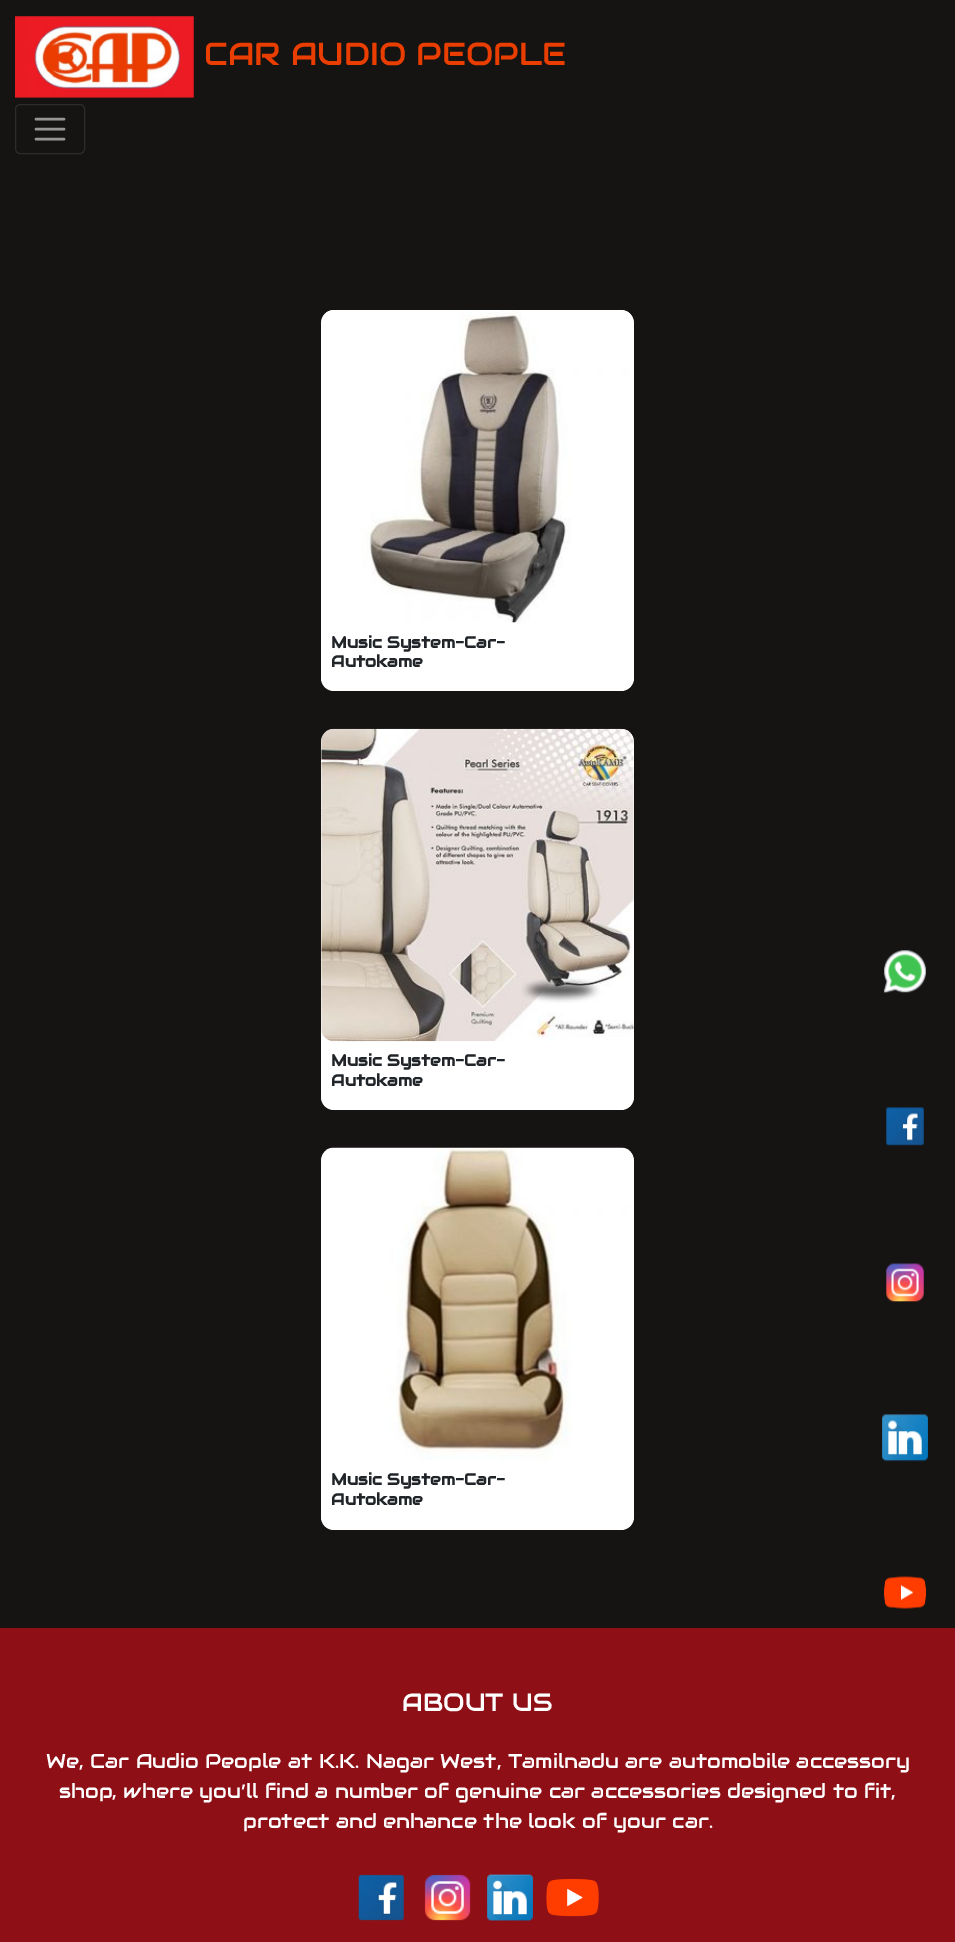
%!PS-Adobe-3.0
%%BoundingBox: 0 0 955 1942
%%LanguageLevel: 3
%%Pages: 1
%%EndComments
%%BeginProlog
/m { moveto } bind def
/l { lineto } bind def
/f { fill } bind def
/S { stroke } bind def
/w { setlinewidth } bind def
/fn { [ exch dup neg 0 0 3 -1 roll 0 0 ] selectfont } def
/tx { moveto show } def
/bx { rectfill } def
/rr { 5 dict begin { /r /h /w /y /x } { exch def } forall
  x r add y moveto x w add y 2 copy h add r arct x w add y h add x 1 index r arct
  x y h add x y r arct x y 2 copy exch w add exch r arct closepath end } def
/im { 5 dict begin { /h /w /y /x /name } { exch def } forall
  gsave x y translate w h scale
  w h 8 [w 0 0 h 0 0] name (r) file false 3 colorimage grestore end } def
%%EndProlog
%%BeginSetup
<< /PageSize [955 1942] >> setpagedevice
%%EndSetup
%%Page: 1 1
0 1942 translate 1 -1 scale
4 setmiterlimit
0.086 0.075 0.075 setrgbcolor
0 0 955 1942 bx
(image0.raw) 15 16 179 82 im
/Audiowide-Regular 31.75 fn
0.918 0.243 0 setrgbcolor
(CAR AUDIO PEOPLE) 204 65 tx
0.176 0.169 0.169 setrgbcolor
15.5 104.5 69 49 4.5 rr S
0.588 0.584 0.584 setrgbcolor
2.5 w
1 setlinecap
36 119 m 64 119 l 36 129 m 64 129 l 36 139 m 64 139 l S
1 setgray
321 310 313 381 13 rr f
(image1.raw) 321 310 313 313 im
/Audiowide-Bold 16.25 fn
0.129 0.145 0.161 setrgbcolor
(Music System-Car-) 331 648 tx
(Autokame) 331 667 tx
1 setgray
321 729 313 381 13 rr f
(image2.raw) 321 728 313 314 im
0.129 0.145 0.161 setrgbcolor
(Music System-Car-) 331 1066 tx
(Autokame) 331 1086 tx
1 setgray
321 1148 313 382 13 rr f
(image3.raw) 321 1147 313 313 im
0.129 0.145 0.161 setrgbcolor
(Music System-Car-) 331 1485 tx
(Autokame) 331 1505 tx
0.557 0.063 0.086 setrgbcolor
0 1628 955 314 bx
(image4.raw) 883 950 43 44 im
(image5.raw) 886 1107 38 39 im
(image6.raw) 886 1263 38 39 im
(image7.raw) 882 1414 46 48 im
(image8.raw) 884 1576 43 33 im
/Audiowide-Regular 25 fn
1 setgray
(ABOUT US) 402 1711 tx
/Audiowide-Regular 20 fn
(We, Car Audio People at K.K. Nagar West, Tamilnadu are automobile accessory) 46 1768 tx
(shop, where you’ll find a number of genuine car accessories designed to fit,) 59 1798 tx
(protect and enhance the look of your car.) 243 1828 tx
(image9.raw) 358 1874 46 47 im
(image10.raw) 424 1874 47 47 im
(image11.raw) 487 1874 46 47 im
(image12.raw) 546 1878 53 39 im
showpage
%%EOF
